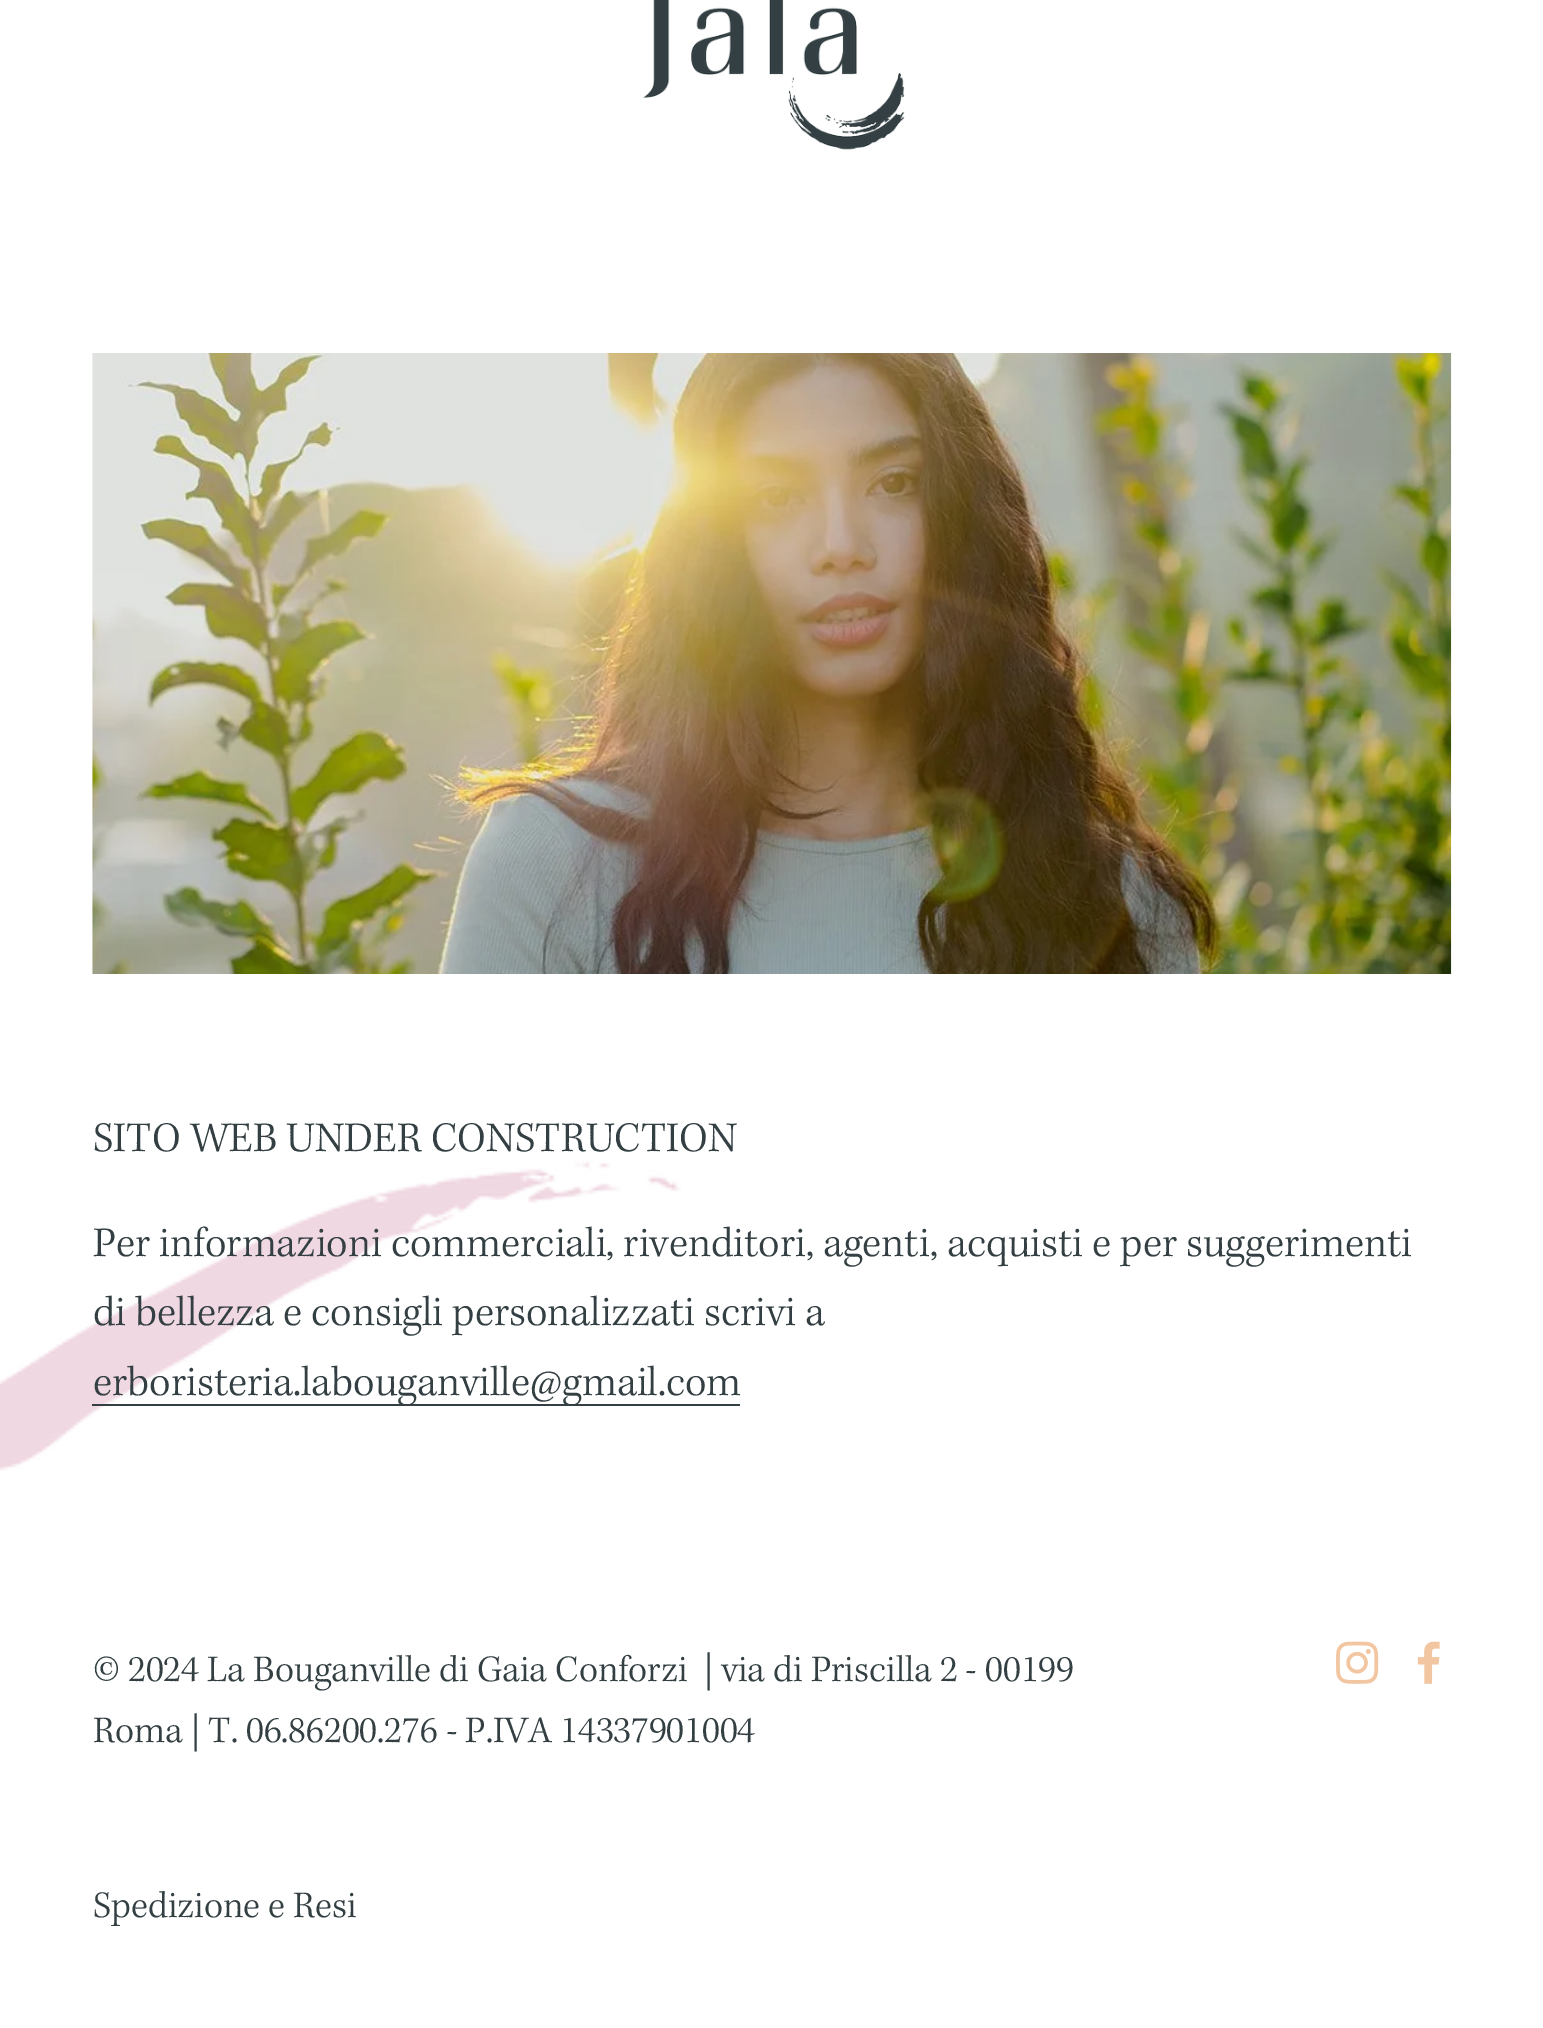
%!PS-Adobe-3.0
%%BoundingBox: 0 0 1543 2028
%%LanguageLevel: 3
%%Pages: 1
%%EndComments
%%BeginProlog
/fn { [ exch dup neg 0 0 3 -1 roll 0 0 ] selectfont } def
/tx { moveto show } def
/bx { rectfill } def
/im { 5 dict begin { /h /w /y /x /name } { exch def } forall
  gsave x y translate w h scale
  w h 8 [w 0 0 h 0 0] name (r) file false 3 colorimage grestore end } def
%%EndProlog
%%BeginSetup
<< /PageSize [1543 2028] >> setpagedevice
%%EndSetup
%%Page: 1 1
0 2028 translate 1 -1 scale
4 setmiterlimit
1 setgray
0 0 1543 2028 bx
(image0.raw) 643 0 262 150 im
(image1.raw) 92 353 1360 621 im
/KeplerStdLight-Light 43.3 fn
0.2 0.247 0.259 setrgbcolor
(SITO WEB UNDER CONSTRUCTION) 93 1151 tx
(image2.raw) 0 1160 681 311 im
(Per informazioni commerciali, rivenditori, agenti, acquisti e per suggerimenti) 93 1256 tx
(di bellezza e consigli personalizzati scrivi a) 93 1325 tx
92 1404 648 2 bx
(erboristeria.labouganville@gmail.com) 93 1395 tx
/KeplerStdLight-Light 38.4 fn
(© 2024 La Bouganville di Gaia Conforzi  | via di Priscilla 2 - 00199) 93 1681 tx
(Roma | T. 06.86200.276 - P.IVA 14337901004) 93 1742 tx
(image3.raw) 1336 1641 43 43 im
(image4.raw) 1417 1641 23 43 im
(Spedizione e Resi) 93 1917 tx
showpage
%%EOF
